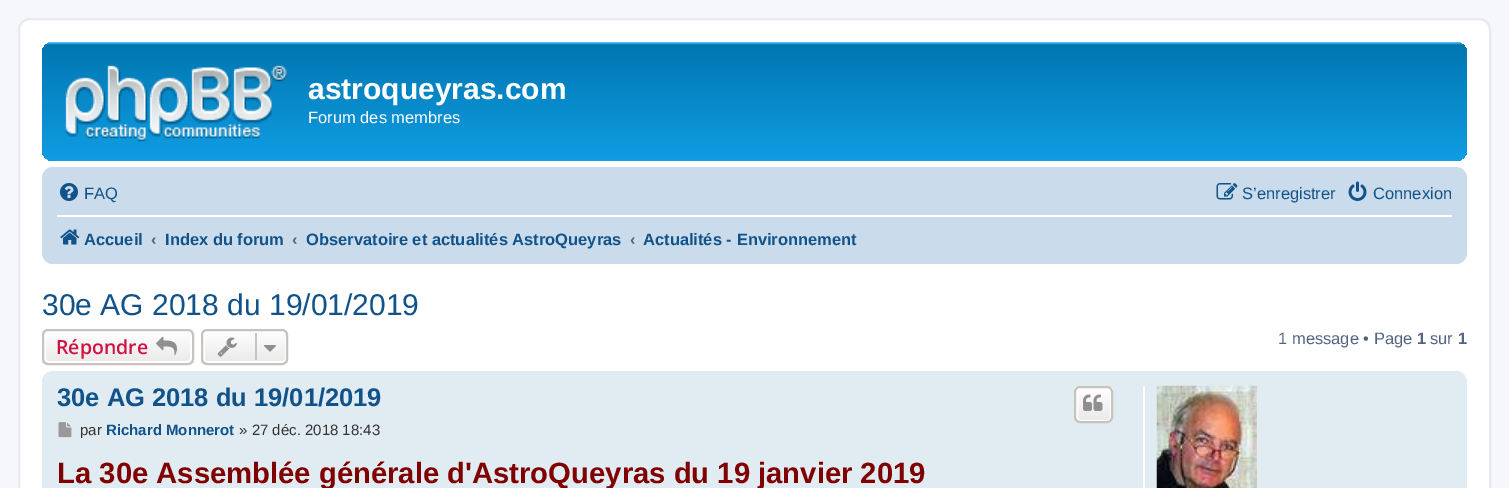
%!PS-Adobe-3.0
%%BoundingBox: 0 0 1509 488
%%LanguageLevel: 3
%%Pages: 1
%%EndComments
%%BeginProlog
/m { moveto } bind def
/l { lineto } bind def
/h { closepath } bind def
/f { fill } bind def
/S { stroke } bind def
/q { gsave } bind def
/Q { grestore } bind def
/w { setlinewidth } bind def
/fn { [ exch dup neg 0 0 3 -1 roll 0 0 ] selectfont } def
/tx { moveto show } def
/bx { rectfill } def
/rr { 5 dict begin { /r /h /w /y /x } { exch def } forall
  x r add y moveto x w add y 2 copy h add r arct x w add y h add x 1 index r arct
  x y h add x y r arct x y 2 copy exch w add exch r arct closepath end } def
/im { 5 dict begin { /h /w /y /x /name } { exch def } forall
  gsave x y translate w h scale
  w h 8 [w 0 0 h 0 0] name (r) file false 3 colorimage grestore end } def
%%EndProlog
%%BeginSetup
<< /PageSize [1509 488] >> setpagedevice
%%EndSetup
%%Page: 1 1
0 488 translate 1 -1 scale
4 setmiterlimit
0.961 0.969 0.98 setrgbcolor
0 0 1509 488 bx
1 setgray
19 19 1471 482 11 rr q f Q
0.902 0.914 0.929 setrgbcolor
2 w
S
q 42 42 1425 119 11 rr clip newpath
<< /ShadingType 2 /ColorSpace /DeviceRGB /Coords [755 42 755 180] /Extend [true true] /Function << /FunctionType 3 /Domain [0 1] /Functions [<< /FunctionType 2 /Domain [0 1] /C0 [0.416 0.808 1] /C1 [0 0.463 0.694] /N 1 >> << /FunctionType 2 /Domain [0 1] /C0 [0 0.463 0.694] /C1 [0.071 0.639 0.922] /N 1 >>] /Bounds [0.02] /Encode [0 1 0 1] >> >> shfill Q
(image0.raw) 65 65 222 77 im
/LiberationSans-Bold 30 fn
1 setgray
(astroqueyras.com) 308 99 tx
/LiberationSans-Regular 16.5 fn
(Forum des membres) 308 123 tx
0.792 0.863 0.922 setrgbcolor
42 167 1425 97 11 rr f
(image1.raw) 60 183 18 18 im
0.063 0.322 0.537 setrgbcolor
(FAQ) 84 199 tx
(image2.raw) 1216 183 22 17 im
(S’enregistrer) 1242 199 tx
(image3.raw) 1348 181 19 20 im
(Connexion) 1373 199 tx
1 setgray
57 215 1395 2 bx
(image4.raw) 60 229 20 16 im
/LiberationSans-Bold 16.5 fn
0.063 0.322 0.537 setrgbcolor
(Accueil) 84 245 tx
0.325 0.392 0.51 setrgbcolor
(‹) 151 245 tx
0.063 0.322 0.537 setrgbcolor
(Index du forum) 165 245 tx
0.325 0.392 0.51 setrgbcolor
(‹) 292 245 tx
0.063 0.322 0.537 setrgbcolor
(Observatoire et actualités AstroQueyras) 306 245 tx
0.325 0.392 0.51 setrgbcolor
(‹) 630 245 tx
0.063 0.322 0.537 setrgbcolor
(Actualités - Environnement) 643 245 tx
/LiberationSans-Regular 30 fn
(30e AG 2018 du 19/01/2019) 42 315 tx
q
42 329 152 36 6 rr clip newpath
q 42 330 m 194 330 l 194 363 l 42 363 l h clip newpath
<< /ShadingType 2 /ColorSpace /DeviceRGB /Coords [118 330 118 363] /Extend [true true] /Function << /FunctionType 2 /Domain [0 1] /C0 [1 1 1] /C1 [0.914 0.914 0.914] /N 1 >> >> shfill Q
Q
1 setgray
45 331 146 31 4 rr S
0.78 0.765 0.749 setrgbcolor
43 330 150 34 5 rr S
/OpenSans-SemiBold 19.5 fn
0.827 0.067 0.255 setrgbcolor
(Répondre) 56 354 tx
(image5.raw) 156 336 21 20 im
q
201 329 87 36 6 rr clip newpath
q 201 330 m 288 330 l 288 363 l 201 363 l h clip newpath
<< /ShadingType 2 /ColorSpace /DeviceRGB /Coords [245 330 245 363] /Extend [true true] /Function << /FunctionType 2 /Domain [0 1] /C0 [1 1 1] /C1 [0.914 0.914 0.914] /N 1 >> >> shfill Q
Q
1 setgray
204 331 82 31 4 rr S
0.78 0.765 0.749 setrgbcolor
202 330 85 34 5 rr S
(image6.raw) 217 337 20 20 im
255 333 2 27 bx
(image7.raw) 264 345 12 7 im
/LiberationSans-Regular 16.5 fn
0.325 0.392 0.51 setrgbcolor
(1 message • Page) 1278 344 tx
/LiberationSans-Bold 16.5 fn
(1) 1417 344 tx
/LiberationSans-Regular 16.5 fn
(sur) 1430 344 tx
/LiberationSans-Bold 16.5 fn
(1) 1458 344 tx
0.882 0.922 0.949 setrgbcolor
42 371 1425 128 11 rr f
/LiberationSans-Bold 25.5 fn
0.063 0.322 0.537 setrgbcolor
(30e AG 2018 du 19/01/2019) 57 406 tx
q
1074 386 39 37 6 rr clip newpath
q 1074 387 m 1113 387 l 1113 422 l 1074 422 l h clip newpath
<< /ShadingType 2 /ColorSpace /DeviceRGB /Coords [1094 387 1094 422] /Extend [true true] /Function << /FunctionType 2 /Domain [0 1] /C0 [1 1 1] /C1 [0.914 0.914 0.914] /N 1 >> >> shfill Q
Q
1 setgray
1077 388 34 33 4 rr S
0.78 0.765 0.749 setrgbcolor
1075 387 37 35 5 rr S
(image8.raw) 1083 394 20 17 im
(image9.raw) 58 422 14 16 im
/LiberationSans-Regular 15 fn
0.2 setgray
(par) 80 435 tx
/LiberationSans-Bold 15 fn
0.063 0.322 0.537 setrgbcolor
(Richard Monnerot) 106 435 tx
/LiberationSans-Regular 15 fn
0.2 setgray
(» 27 déc. 2018 18:43) 239 435 tx
/LiberationSans-Bold 29.25 fn
0.502 0 0 setrgbcolor
(La 30e Assemblée générale d'AstroQueyras du 19 janvier 2019) 57 483 tx
1 setgray
1143 386 2 102 bx
(image10.raw) 1156 385 101 103 im
showpage
%%EOF
